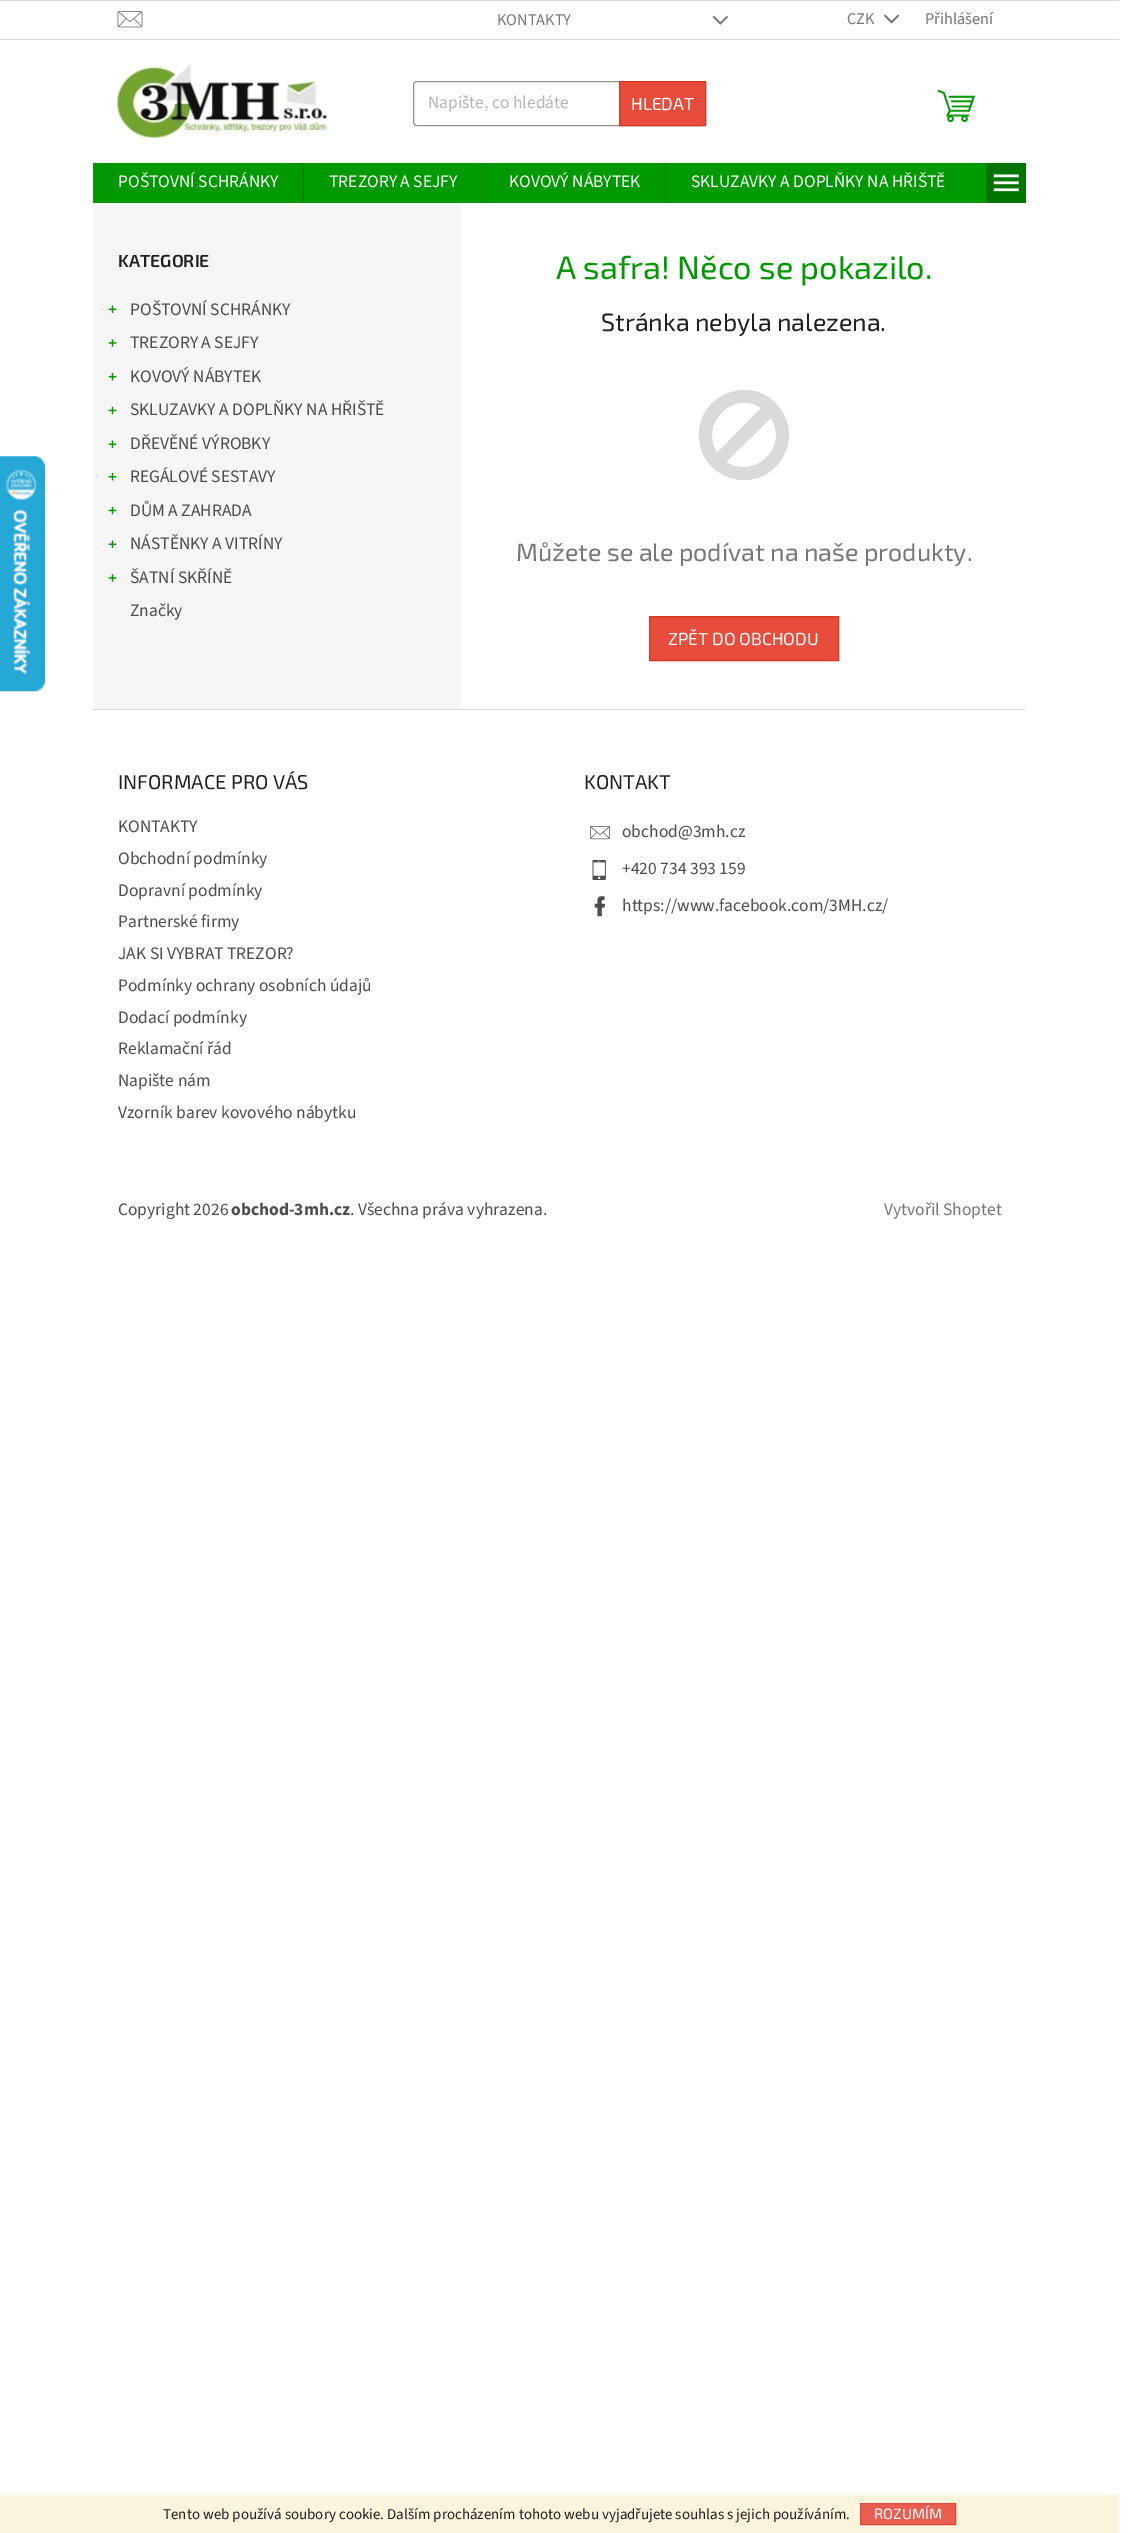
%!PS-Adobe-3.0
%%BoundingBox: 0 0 1137 2533
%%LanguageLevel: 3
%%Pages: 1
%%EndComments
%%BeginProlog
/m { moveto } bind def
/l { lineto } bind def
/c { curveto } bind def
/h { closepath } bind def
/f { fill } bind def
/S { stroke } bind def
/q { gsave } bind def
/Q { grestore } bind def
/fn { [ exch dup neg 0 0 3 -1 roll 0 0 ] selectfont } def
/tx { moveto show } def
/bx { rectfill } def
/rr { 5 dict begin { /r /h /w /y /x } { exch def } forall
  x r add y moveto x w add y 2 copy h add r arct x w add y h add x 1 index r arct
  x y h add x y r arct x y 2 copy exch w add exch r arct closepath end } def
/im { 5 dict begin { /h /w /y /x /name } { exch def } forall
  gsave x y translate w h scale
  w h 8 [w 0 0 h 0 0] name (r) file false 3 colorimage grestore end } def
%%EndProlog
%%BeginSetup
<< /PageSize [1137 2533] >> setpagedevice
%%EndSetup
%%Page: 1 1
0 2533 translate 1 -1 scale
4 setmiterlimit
1 setgray
0 0 1137 2533 bx
(image0.raw) 0 456 45 236 im
0.855 setgray
0 0 1119 1 bx
0 39 1119 1 bx
(image1.raw) 117 11 26 17 im
/SourceSans3-Regular 16.25 fn
0.463 setgray
(KONTAKTY) 497 25 tx
(image2.raw) 712 15 16 10 im
(CZK) 847 24 tx
(image3.raw) 883 14 17 10 im
(Přihlášení) 925 24 tx
(image4.raw) 117 64 211 74 im
0.569 setgray
413.5 81.5 292 44 3.5 rr S
/SourceSans3-Regular 17.5 fn
0.714 setgray
(Napište, co hledáte) 428 108 tx
0.906 0.298 0.235 setrgbcolor
619.5 81.5 m 705.5 81.5 l 705.5 125.5 l 619.5 125.5 l h q f Q
0.851 0.212 0.129 setrgbcolor
S
/Exo2-Regular 17.5 fn
1 setgray
(HLEDAT) 631 110 tx
(image5.raw) 937 89 38 33 im
0 0.6 0.004 setrgbcolor
93 163 893 40 bx
/SourceSans3-Regular 17.5 fn
1 setgray
(POŠTOVNÍ SCHRÁNKY) 118 187 tx
0 0.459 0 setrgbcolor
303 163 1 40 bx
1 setgray
(TREZORY A SEJFY) 329 187 tx
0 0.459 0 setrgbcolor
483 163 1 40 bx
1 setgray
(KOVOVÝ NÁBYTEK) 509 187 tx
0 0.459 0 setrgbcolor
665 163 1 40 bx
1 setgray
(SKLUZAVKY A DOPLŇKY NA HŘIŠTĚ) 691 187 tx
0 0.459 0 setrgbcolor
986 163 40 40 bx
(image6.raw) 993 174 26 18 im
0.965 setgray
93 203 368 506 bx
/Exo2-SemiBold 17.5 fn
0.122 setgray
(KATEGORIE) 118 267 tx
(image7.raw) 108 305 9 8 im
/SourceSans3-Regular 17.5 fn
0.302 setgray
(POŠTOVNÍ SCHRÁNKY) 130 315 tx
(image8.raw) 108 339 9 8 im
(TREZORY A SEJFY) 130 348 tx
(image9.raw) 108 372 9 9 im
(KOVOVÝ NÁBYTEK) 130 382 tx
(image10.raw) 108 406 9 9 im
(SKLUZAVKY A DOPLŇKY NA HŘIŠTĚ) 130 415 tx
(image7.raw) 108 440 9 8 im
(DŘEVĚNÉ VÝROBKY) 130 449 tx
(image9.raw) 108 472 9 9 im
(REGÁLOVÉ SESTAVY) 130 482 tx
(image10.raw) 108 506 9 9 im
(DŮM A ZAHRADA) 130 516 tx
(image7.raw) 108 540 9 8 im
(NÁSTĚNKY A VITRÍNY) 130 549 tx
(image8.raw) 108 574 9 8 im
(ŠATNÍ SKŘÍNĚ) 130 583 tx
(Značky) 130 616 tx
/Exo2-Regular 32.5 fn
0 0.6 0.004 setrgbcolor
(A safra! Něco se pokazilo.) 556 279 tx
/Exo2-Regular 25 fn
0.122 setgray
(Stránka nebyla nalezena.) 601 331 tx
0.855 setgray
776 435 m 776 429 774 423 771 418 c 726 462 l 747 476 776 460 776 435 c h 717 453 m 761 408 l 733 389 699 424 717 453 c h 789 435 m 789 444 786 453 781 460 c 756 497 699 479 699 435 c 699 391 757 373 781 410 c 786 417 789 426 789 435 c h f
0.463 setgray
(Můžete se ale podívat na naše produkty.) 516 561 tx
0.906 0.298 0.235 setrgbcolor
649.5 616.5 m 838.5 616.5 l 838.5 660.5 l 649.5 660.5 l h q f Q
0.851 0.212 0.129 setrgbcolor
S
/Exo2-Regular 17.5 fn
1 setgray
(ZPĚT DO OBCHODU) 668 645 tx
0.855 setgray
93 709 933 1 bx
/Exo2-Regular 20 fn
0.122 setgray
(INFORMACE PRO VÁS) 118 789 tx
/SourceSans3-Regular 17.5 fn
0.302 setgray
(KONTAKTY) 118 832 tx
(Obchodní podmínky) 118 864 tx
(Dopravní podmínky) 118 896 tx
(Partnerské firmy) 118 927 tx
(JAK SI VYBRAT TREZOR?) 118 959 tx
(Podmínky ochrany osobních údajů) 118 991 tx
(Dodací podmínky) 118 1023 tx
(Reklamační řád) 118 1054 tx
(Napište nám) 118 1086 tx
(Vzorník barev kovového nábytku) 118 1118 tx
/Exo2-Regular 20 fn
0.122 setgray
(KONTAKT) 584 789 tx
(image11.raw) 590 826 20 14 im
/SourceSans3-Regular 17.5 fn
0.302 setgray
(obchod@3mh.cz) 622 837 tx
(image12.raw) 592 860 14 20 im
(+420 734 393 159) 622 874 tx
(image13.raw) 594 896 12 21 im
(https://www.facebook.com/3MH.cz/) 622 911 tx
(Copyright 2026) 118 1215 tx
/SourceSans3-Bold 17.5 fn
(obchod-3mh.cz) 231 1215 tx
/SourceSans3-Regular 17.5 fn
(. Všechna práva vyhrazena.) 350 1215 tx
0.463 setgray
(Vytvořil Shoptet) 884 1215 tx
0.992 0.957 0.871 setrgbcolor
0 2495 1119 38 bx
/SourceSans3-Regular 15 fn
0.122 setgray
(Tento web používá soubory cookie. Dalším procházením tohoto webu vyjadřujete souhlas s jejich používáním.) 163 2519 tx
0.914 0.369 0.314 setrgbcolor
860.5 2503.5 m 955.5 2503.5 l 955.5 2524.5 l 860.5 2524.5 l h q f Q
0.867 0.29 0.216 setrgbcolor
S
/Exo2-Regular 15 fn
1 setgray
(ROZUMÍM) 874 2519 tx
showpage
%%EOF
